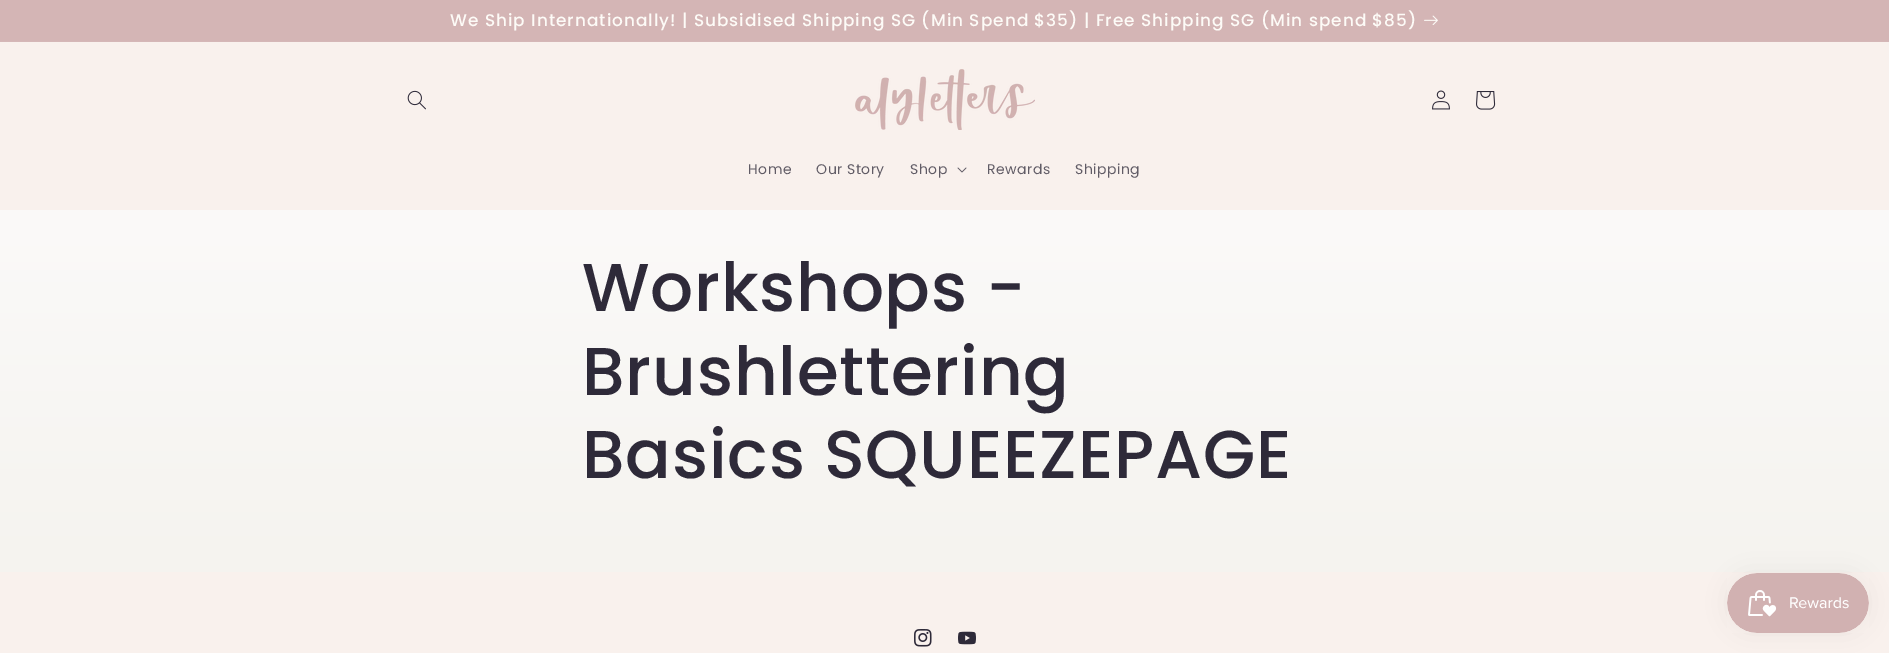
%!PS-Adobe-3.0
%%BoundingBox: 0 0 1889 653
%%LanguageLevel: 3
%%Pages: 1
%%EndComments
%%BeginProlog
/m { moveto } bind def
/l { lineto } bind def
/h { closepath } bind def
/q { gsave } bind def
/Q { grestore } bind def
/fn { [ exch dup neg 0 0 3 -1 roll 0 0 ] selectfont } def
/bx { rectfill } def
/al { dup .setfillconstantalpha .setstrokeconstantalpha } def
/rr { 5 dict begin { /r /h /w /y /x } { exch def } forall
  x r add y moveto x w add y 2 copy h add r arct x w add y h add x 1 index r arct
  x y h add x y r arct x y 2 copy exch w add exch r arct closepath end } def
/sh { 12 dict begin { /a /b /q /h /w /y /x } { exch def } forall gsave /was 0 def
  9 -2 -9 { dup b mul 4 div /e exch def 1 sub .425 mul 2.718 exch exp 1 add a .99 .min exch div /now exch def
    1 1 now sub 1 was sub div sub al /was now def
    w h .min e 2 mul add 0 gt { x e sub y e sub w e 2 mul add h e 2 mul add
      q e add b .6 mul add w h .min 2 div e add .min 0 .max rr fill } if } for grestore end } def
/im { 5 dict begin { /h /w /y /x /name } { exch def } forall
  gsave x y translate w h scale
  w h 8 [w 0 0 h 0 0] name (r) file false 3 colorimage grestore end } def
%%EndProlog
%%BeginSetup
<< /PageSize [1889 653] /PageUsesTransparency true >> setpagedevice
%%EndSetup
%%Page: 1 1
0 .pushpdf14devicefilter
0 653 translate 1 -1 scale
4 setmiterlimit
1 setgray
0 0 1889 653 bx
q 0 210 m 1889 210 l 1889 572 l 0 572 l h clip newpath
<< /ShadingType 2 /ColorSpace /DeviceRGB /Coords [945 0 945 653] /Extend [true true] /Function << /FunctionType 2 /Domain [0 1] /C0 [1 1 1] /C1 [0.957 0.945 0.929] /N 1 >> >> shfill Q
0.835 0.718 0.718 setrgbcolor
0 41 1889 1 bx
0.831 0.71 0.71 setrgbcolor
0 0 1889 41 bx
/Poppins-Medium 16.9 fn
0.992 0.984 0.969 setrgbcolor
450 26 m 1 0 (We Ship Internationally! | Subsidised Shipping SG \(Min Spend $35\) | Free Shipping SG \(Min spend $85\)) ashow
(image0.raw) 1424 15 14 10 im
0.976 0.945 0.929 setrgbcolor
0 42 1889 168 bx
(image1.raw) 407 90 19 20 im
(image2.raw) 855 69 180 61 im
(image3.raw) 1432 90 18 20 im
(image4.raw) 1476 91 20 19 im
/Poppins-Regular 14 fn
0.38 0.361 0.4 setrgbcolor
748 174 m 0.5 0 (Home) ashow
816 174 m 0.5 0 (Our Story) ashow
910 174 m 0.5 0 (Shop) ashow
(image5.raw) 957 167 10 6 im
987 174 m 0.5 0 (Rewards) ashow
1075 174 m 0.5 0 (Shipping) ashow
/Poppins-Medium 67.6 fn
0.18 0.165 0.224 setrgbcolor
582 311 m 0.75 0 (Workshops -) ashow
582 395 m 0.75 0 (Brushlettering) ashow
582 478 m 0.75 0 (Basics SQUEEZEPAGE) ashow
0.976 0.945 0.929 setrgbcolor
0 572 1889 81 bx
0 setgray
1727 573 142 60 30 12.5 0.05 sh
(image6.raw) 1727 573 142 60 im
(image7.raw) 914 629 18 18 im
(image8.raw) 958 631 18 14 im
.poppdf14devicefilter showpage
%%EOF
